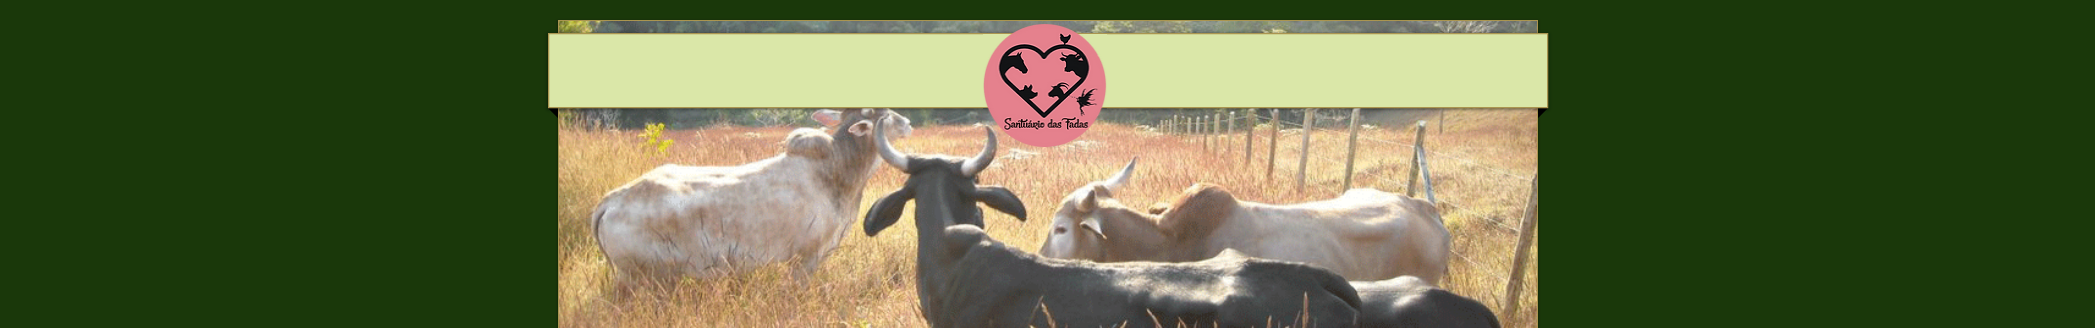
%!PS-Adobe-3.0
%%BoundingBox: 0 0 2095 328
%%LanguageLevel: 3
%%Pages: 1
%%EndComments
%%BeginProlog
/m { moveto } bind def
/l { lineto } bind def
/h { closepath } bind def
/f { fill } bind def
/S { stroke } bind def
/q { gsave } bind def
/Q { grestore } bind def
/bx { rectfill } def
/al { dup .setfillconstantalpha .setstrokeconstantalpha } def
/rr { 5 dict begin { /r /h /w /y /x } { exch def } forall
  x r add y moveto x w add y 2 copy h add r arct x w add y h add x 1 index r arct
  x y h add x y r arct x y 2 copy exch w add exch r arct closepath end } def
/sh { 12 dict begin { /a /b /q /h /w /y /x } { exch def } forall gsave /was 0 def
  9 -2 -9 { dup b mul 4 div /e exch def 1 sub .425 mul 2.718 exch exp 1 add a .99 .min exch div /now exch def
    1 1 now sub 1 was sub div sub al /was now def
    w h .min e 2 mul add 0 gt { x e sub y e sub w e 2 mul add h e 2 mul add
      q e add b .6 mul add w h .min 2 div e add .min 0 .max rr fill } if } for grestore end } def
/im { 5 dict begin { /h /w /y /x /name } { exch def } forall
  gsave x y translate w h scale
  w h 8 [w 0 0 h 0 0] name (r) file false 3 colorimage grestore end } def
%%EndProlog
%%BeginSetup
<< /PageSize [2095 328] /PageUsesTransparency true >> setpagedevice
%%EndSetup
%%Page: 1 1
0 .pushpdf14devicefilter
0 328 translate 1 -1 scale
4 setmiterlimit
0.102 0.22 0.039 setrgbcolor
0 0 2095 328 bx
0 setgray
558 21 980 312 0 1.5 0.5 sh
0.667 0.584 0.314 setrgbcolor
558 20 980 308 bx
(image0.raw) 559 21 978 307 im
0 setgray
548 108 m 558 108 l 558 118 l h f
1538 108 m 1548 108 l 1538 118 l h f
548 34 1000 75 0 2 0.6 sh
0.855 0.906 0.659 setrgbcolor
548.5 33.5 m 1547.5 33.5 l 1547.5 107.5 l 548.5 107.5 l h q f Q
0.667 0.584 0.314 setrgbcolor
S
(image1.raw) 983 24 124 123 im
.poppdf14devicefilter showpage
%%EOF
